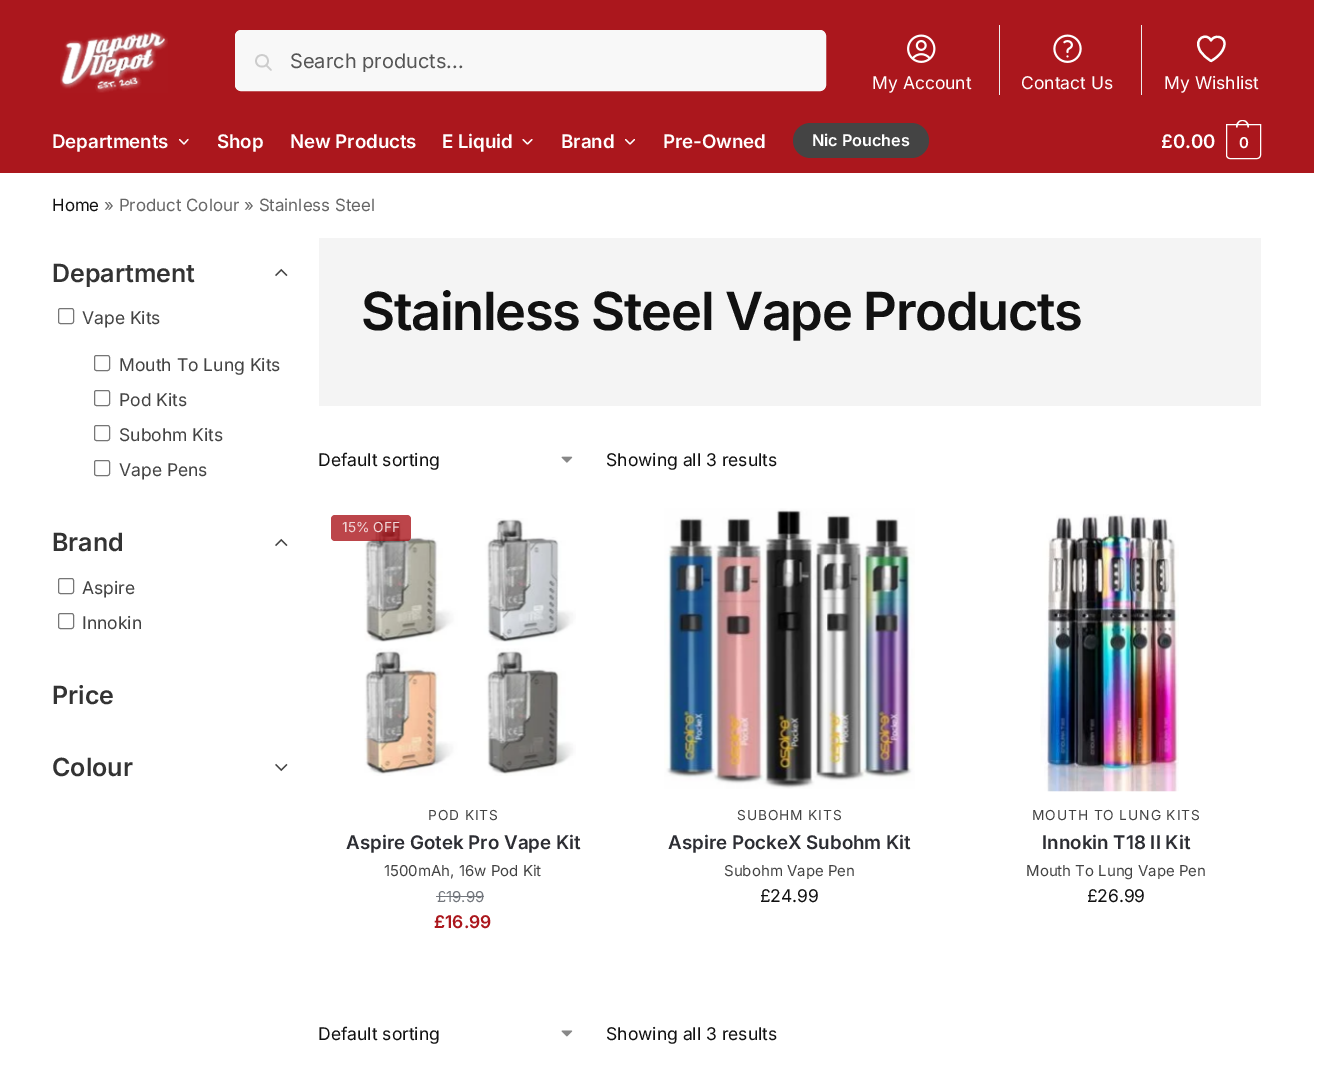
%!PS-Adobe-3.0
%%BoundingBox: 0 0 1332 1080
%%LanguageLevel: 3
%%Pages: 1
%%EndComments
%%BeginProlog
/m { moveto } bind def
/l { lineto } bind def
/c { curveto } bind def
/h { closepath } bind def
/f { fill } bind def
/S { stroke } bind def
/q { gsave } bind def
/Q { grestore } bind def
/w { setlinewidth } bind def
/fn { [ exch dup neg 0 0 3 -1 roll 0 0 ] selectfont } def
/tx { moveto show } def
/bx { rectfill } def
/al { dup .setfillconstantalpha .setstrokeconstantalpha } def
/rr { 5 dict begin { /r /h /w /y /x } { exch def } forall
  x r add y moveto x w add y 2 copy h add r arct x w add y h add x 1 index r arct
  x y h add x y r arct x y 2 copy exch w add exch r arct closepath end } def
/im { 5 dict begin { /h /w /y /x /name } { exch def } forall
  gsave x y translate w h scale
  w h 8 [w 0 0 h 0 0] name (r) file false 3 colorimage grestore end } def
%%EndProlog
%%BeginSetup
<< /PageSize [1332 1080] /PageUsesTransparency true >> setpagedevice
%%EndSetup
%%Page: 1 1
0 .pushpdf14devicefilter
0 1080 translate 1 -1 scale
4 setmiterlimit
1 setgray
0 0 1332 1080 bx
0.671 0.09 0.114 setrgbcolor
0 0 1314 173 bx
(image0.raw) 60 30 108 63 im
0.973 setgray
235.5 30.5 590 60 5.5 rr q f Q
S
0.8 setgray
1.7 w
1 setlinecap
1 setlinejoin
271 70 m 266 65 l 268 61 m 268 68.5 256 68.5 256 61 c 256 53 268 53 268 61 c h S
/Inter-Regular 20 fn
0.333 setgray
(Search products...) 290 68 tx
(image1.raw) 907 34 29 29 im
/Inter-Regular 17.5 fn
1 setgray
(My Account) 872 89 tx
0.933 setgray
999 25 1 70 bx
(image2.raw) 1053 34 29 29 im
1 setgray
(Contact Us) 1021 89 tx
0.933 setgray
1141 25 1 70 bx
1 setgray
2.2 w
1224.5 43.5 m 1224.5 36 1214 34.5 1211 40.5 c 1207.5 32.5 1193 37.5 1200 50.5 c 1202.5 55 1207 58.5 1211 61 c 1211 61 1224.5 54 1224.5 43.5 c h S
(My Wishlist) 1164 89 tx
/Inter-SemiBold 18.75 fn
52 148 m -0.1 0 (Departments) ashow
1.2 w
188 139.5 m 184 144 l 179.5 139.5 l S
217 148 m -0.1 0 (Shop) ashow
290 148 m -0.1 0 (New Products) ashow
442 148 m -0.1 0 (E Liquid) ashow
532 139.5 m 527.5 144 l 523 139.5 l S
561 148 m -0.1 0 (Brand) ashow
634.5 139.5 m 630 144 l 625.5 139.5 l S
663 148 m -0.1 0 (Pre-Owned) ashow
0.267 setgray
793 123 136 35 17.5 rr f
/Inter-SemiBold 16.25 fn
1 setgray
812 146 m -0.1 0 (Nic Pouches) ashow
/Inter-SemiBold 18.75 fn
1161 148 m -0.1 0 (£0.00) ashow
1 w
0 setlinecap
0 setlinejoin
1226.5 124.5 m 1260.5 124.5 l 1260.5 155 l 1260.5 157 1259 158.5 1257 158.5 c 1230 158.5 l 1228 158.5 1226.5 157 1226.5 155 c h S
1242.5 120 m 1247 120 1249 123.5 1249 127.5 c 1236 127.5 l 1236 123.5 1238 120 1242.5 120 c h 1242.5 121 m 1246 121 1247.5 124.5 1247.5 127.5 c 1237.5 127.5 l 1237.5 124.5 1239 121 1242.5 121 c h eofill
/Inter-SemiBold 15 fn
1239 148 m -1 0 (0) ashow
/Inter-Regular 16.9 fn
0.067 setgray
(Home) 52 211 tx
0.4 setgray
(» Product Colour » Stainless Steel) 104 211 tx
/Inter-SemiBold 25 fn
0.2 setgray
(Department) 52 282 tx
(image3.raw) 275 268 13 9 im
0.463 setgray
58.5 308.5 15 15 2 rr S
/Inter-Regular 17.5 fn
0.263 setgray
(Vape Kits) 82 324 tx
0.463 setgray
94.5 355.5 15 15 2 rr S
0.263 setgray
(Mouth To Lung Kits) 119 371 tx
0.463 setgray
94.5 390.5 15 15 2 rr S
0.263 setgray
(Pod Kits) 119 406 tx
0.463 setgray
94.5 425.5 15 15 2 rr S
0.263 setgray
(Subohm Kits) 119 441 tx
0.463 setgray
94.5 460.5 15 15 2 rr S
0.263 setgray
(Vape Pens) 119 476 tx
/Inter-SemiBold 25 fn
0.2 setgray
(Brand) 52 551 tx
(image3.raw) 275 538 13 9 im
0.463 setgray
58.5 578.5 15 15 2 rr S
/Inter-Regular 17.5 fn
0.263 setgray
(Aspire) 82 594 tx
0.463 setgray
58.5 613.5 15 15 2 rr S
0.263 setgray
(Innokin) 82 629 tx
/Inter-SemiBold 25 fn
0.2 setgray
(Price) 52 704 tx
(Colour) 52 776 tx
(image4.raw) 275 763 13 9 im
0.957 setgray
319 238 942 168 bx
/Inter-SemiBold 52.5 fn
0.067 setgray
361 330 m -1.4 0 (Stainless Steel Vape Products) ashow
(image5.raw) 561 456 12 7 im
/Inter-Regular 17.5 fn
(Default sorting) 318 466 tx
(Showing all 3 results) 606 466 tx
(image6.raw) 364 518 212 258 im
0.8 al
0.671 0.09 0.114 setrgbcolor
331 515 80 26 4 rr f
/Inter-Regular 13.75 fn
1 al
0.941 0.847 0.851 setrgbcolor
(15% OFF) 342 532 tx
0.263 setgray
428 820 m 0.9 0 (POD KITS) ashow
/Inter-SemiBold 18.75 fn
0.173 0.176 0.2 setrgbcolor
(Aspire Gotek Pro Vape Kit) 346 849 tx
/Inter-Regular 15 fn
0.263 setgray
(1500mAh, 16w Pod Kit) 384 876 tx
0.447 0.463 0.486 setrgbcolor
(£) 437 902 tx
446 896 38 1 bx
436 896 10 1 bx
(19.99) 446 902 tx
/Inter-SemiBold 17.5 fn
0.671 0.09 0.114 setrgbcolor
(£) 434 928 tx
(16.99) 445 928 tx
(image7.raw) 664 508 251 281 im
/Inter-Regular 13.75 fn
0.263 setgray
737 820 m 0.9 0 (SUBOHM KITS) ashow
/Inter-SemiBold 18.75 fn
0.173 0.176 0.2 setrgbcolor
(Aspire PockeX Subohm Kit) 668 849 tx
/Inter-Regular 15 fn
0.263 setgray
(Subohm Vape Pen) 724 876 tx
/Inter-Regular 17.5 fn
0.067 setgray
(£) 760 902 tx
(24.99) 770 902 tx
(image8.raw) 1040 514 139 278 im
/Inter-Regular 13.75 fn
0.263 setgray
1032 820 m 0.9 0 (MOUTH TO LUNG KITS) ashow
/Inter-SemiBold 18.75 fn
0.173 0.176 0.2 setrgbcolor
(Innokin T18 II Kit) 1042 849 tx
/Inter-Regular 15 fn
0.263 setgray
(Mouth To Lung Vape Pen) 1026 876 tx
/Inter-Regular 17.5 fn
0.067 setgray
(£) 1087 902 tx
(26.99) 1097 902 tx
(image9.raw) 561 1030 12 7 im
(Default sorting) 318 1040 tx
(Showing all 3 results) 606 1040 tx
.poppdf14devicefilter showpage
%%EOF
